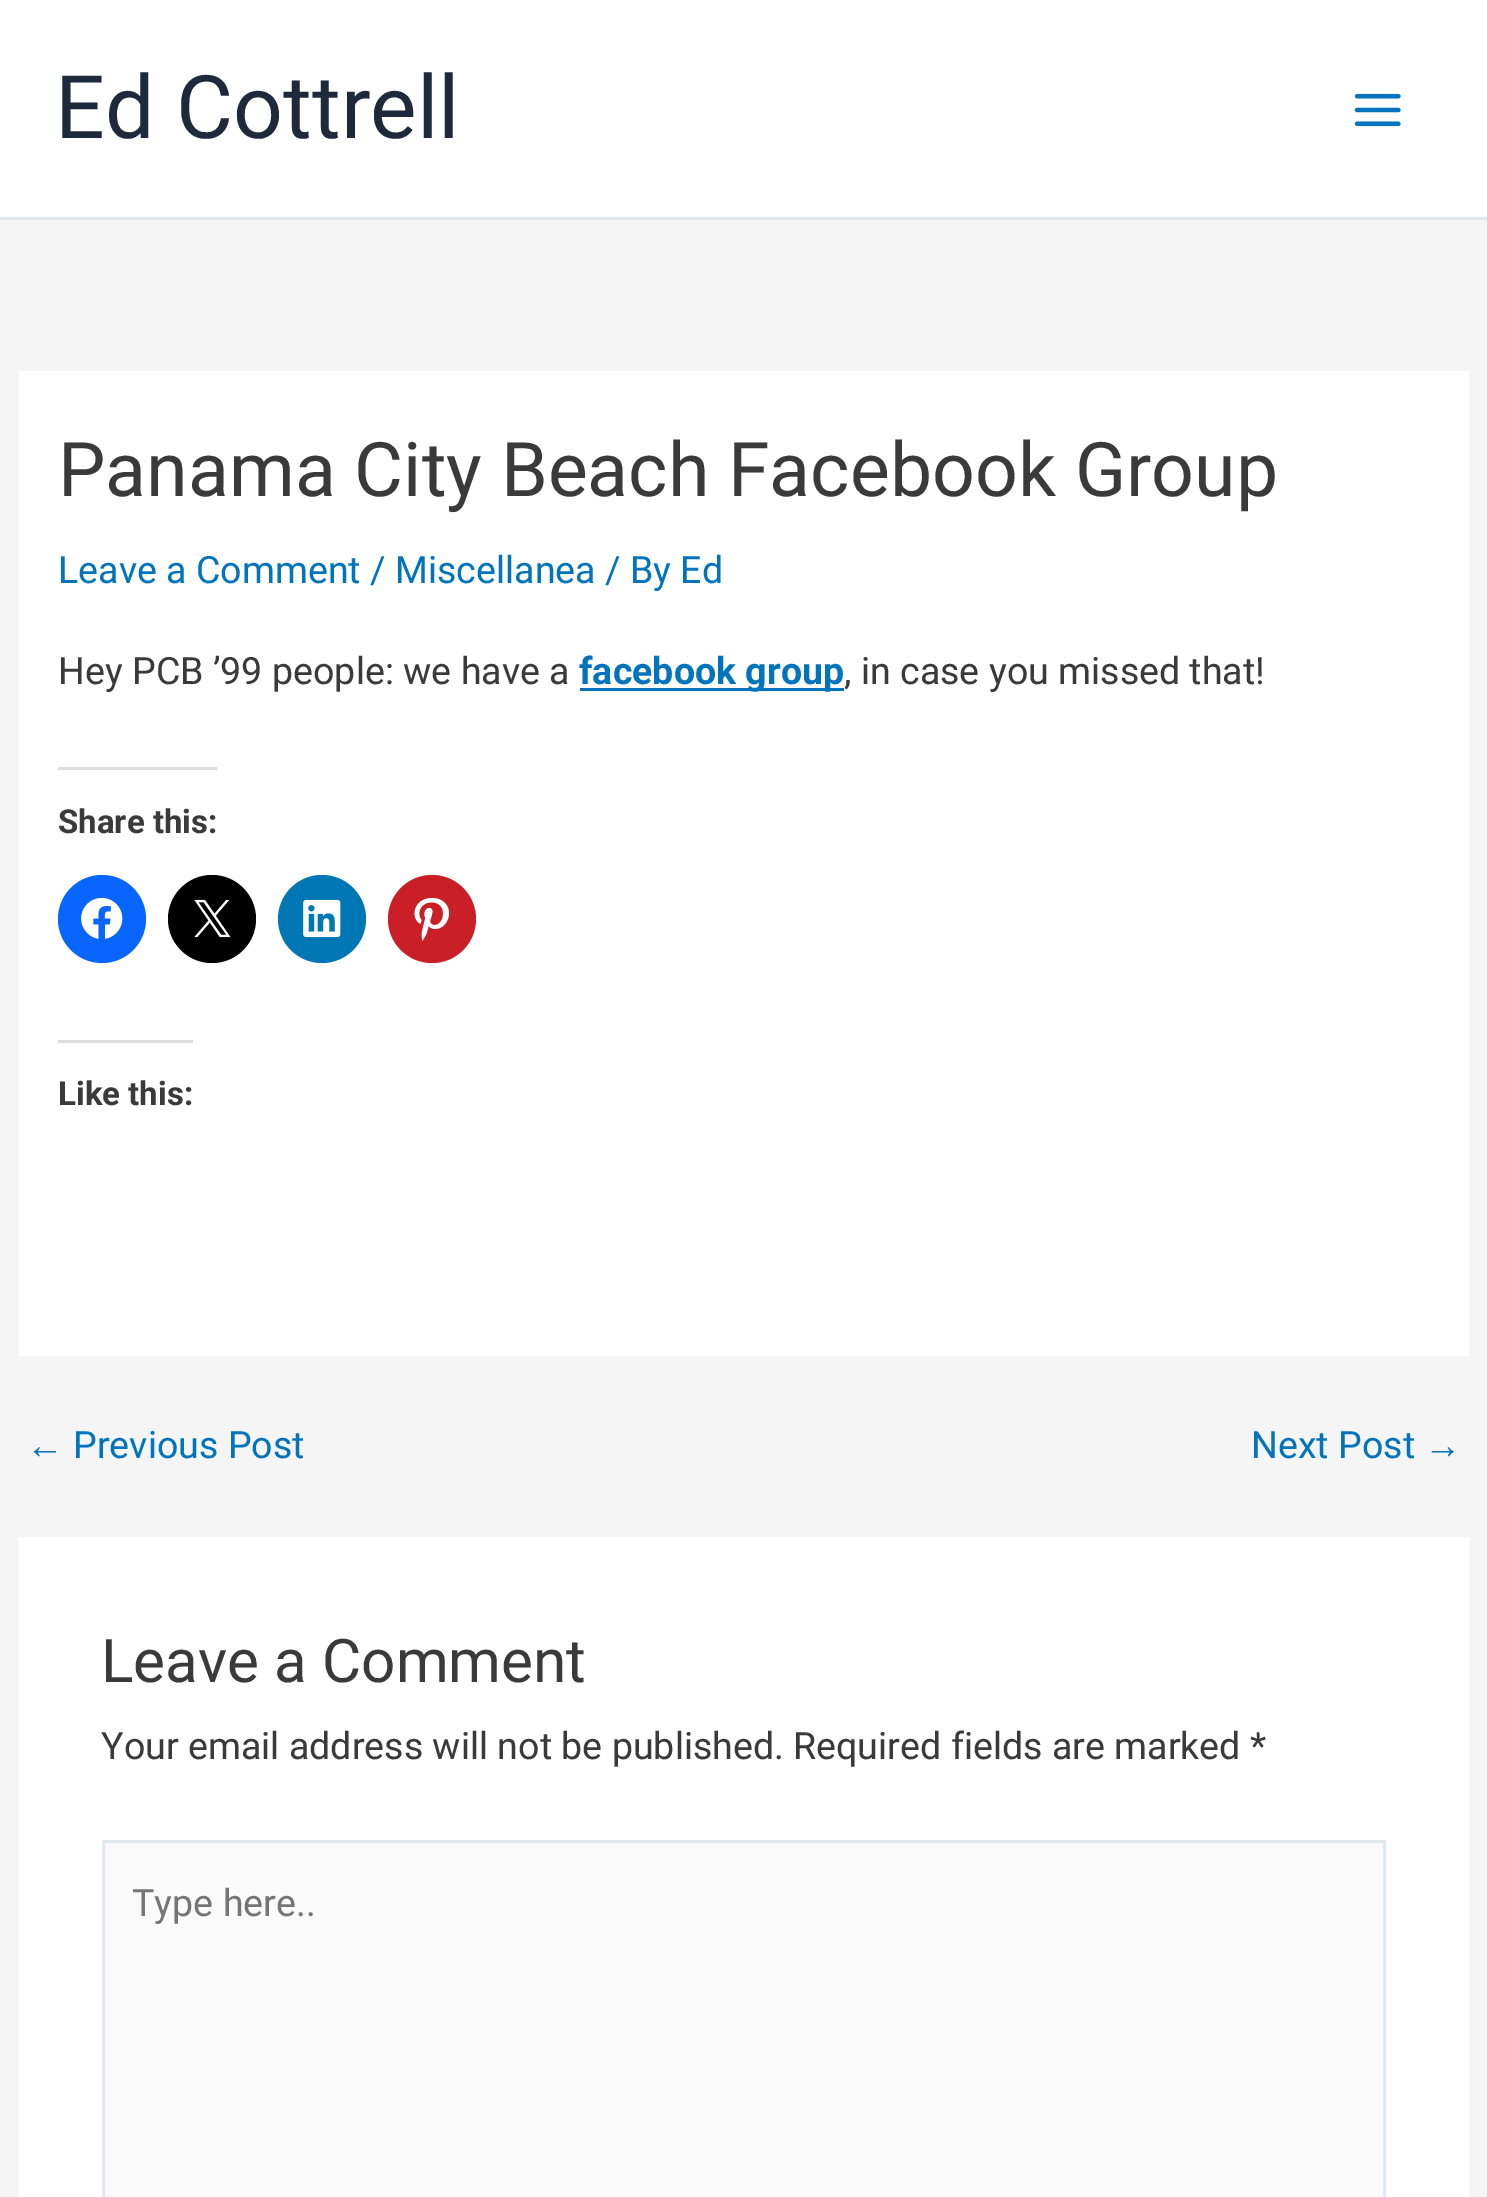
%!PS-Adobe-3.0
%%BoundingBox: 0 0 1487 2197
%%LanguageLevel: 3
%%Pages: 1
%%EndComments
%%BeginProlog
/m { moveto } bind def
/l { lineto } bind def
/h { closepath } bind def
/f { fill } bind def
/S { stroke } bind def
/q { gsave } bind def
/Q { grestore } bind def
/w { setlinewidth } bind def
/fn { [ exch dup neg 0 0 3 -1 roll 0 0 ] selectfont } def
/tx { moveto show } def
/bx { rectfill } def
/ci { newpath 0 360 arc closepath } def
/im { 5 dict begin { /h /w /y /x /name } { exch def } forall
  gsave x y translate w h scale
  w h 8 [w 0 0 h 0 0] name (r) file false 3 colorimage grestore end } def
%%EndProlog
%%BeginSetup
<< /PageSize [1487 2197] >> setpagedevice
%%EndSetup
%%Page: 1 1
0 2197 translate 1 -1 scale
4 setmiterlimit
0.961 setgray
0 0 1487 2197 bx
1 setgray
0 0 1487 217 bx
0.886 0.91 0.941 setrgbcolor
0 217 1487 3 bx
/Roboto-Regular 87.75 fn
0.118 0.161 0.231 setrgbcolor
(Ed Cottrell) 55 138 tx
(image0.raw) 1354 93 47 34 im
1 setgray
19 371 1450 985 bx
/Roboto-Regular 75.25 fn
0.227 setgray
(Panama City Beach Facebook Group) 58 496 tx
/Roboto-Regular 37.6 fn
0.008 0.455 0.745 setrgbcolor
(Leave a Comment / Miscellanea / By Ed) 58 583 tx
0.227 setgray
(Hey PCB ’99 people: we have a) 58 684 tx
0.008 0.455 0.745 setrgbcolor
580 688 264 3 bx
/Roboto-Bold 37.6 fn
(facebook group) 579 684 tx
/Roboto-Regular 37.6 fn
0.227 setgray
(, in case you missed that!) 844 684 tx
0.863 0.863 0.871 setrgbcolor
58 767 159 3 bx
/Roboto-Bold 33 fn
0.227 setgray
(Share this:) 58 833 tx
0.031 0.4 1 setrgbcolor
102 919 44 ci f
(image1.raw) 81 897 42 42 im
0 setgray
212 919 44 ci f
(image2.raw) 194 899 37 39 im
0 0.467 0.71 setrgbcolor
322 919 44 ci f
(image3.raw) 303 899 38 39 im
0.792 0.122 0.153 setrgbcolor
432 919 44 ci f
(image4.raw) 414 897 36 44 im
0.863 0.863 0.871 setrgbcolor
58 1040 135 3 bx
0.227 setgray
(Like this:) 58 1105 tx
/LiberationSans-Regular 37.6 fn
0.008 0.455 0.745 setrgbcolor
(←) 26 1458 tx
/Roboto-Regular 37.6 fn
(Previous Post) 73 1458 tx
(Next Post) 1251 1458 tx
/LiberationSans-Regular 37.6 fn
(→) 1424 1458 tx
1 setgray
19 1537 1450 660 bx
/Roboto-Regular 60.25 fn
0.227 setgray
(Leave a Comment) 101 1682 tx
/Roboto-Regular 37.6 fn
(Your email address will not be published.) 101 1759 tx
(Required fields are marked *) 793 1759 tx
0.98 setgray
103.5 1841.5 m 1384.5 1841.5 l 1384.5 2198.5 l 103.5 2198.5 l h q f Q
0.886 0.91 0.941 setrgbcolor
3 w
S
0.459 setgray
(Type here..) 132 1916 tx
showpage
%%EOF
